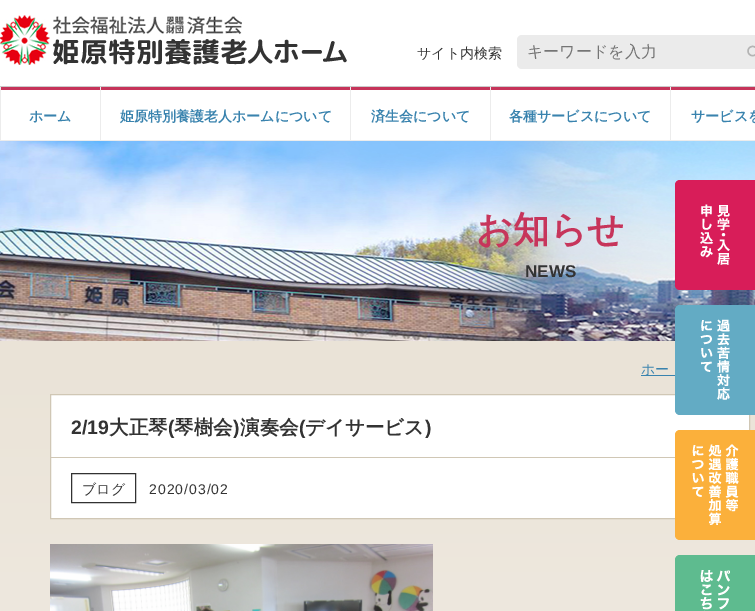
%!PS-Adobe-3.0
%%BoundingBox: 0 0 755 611
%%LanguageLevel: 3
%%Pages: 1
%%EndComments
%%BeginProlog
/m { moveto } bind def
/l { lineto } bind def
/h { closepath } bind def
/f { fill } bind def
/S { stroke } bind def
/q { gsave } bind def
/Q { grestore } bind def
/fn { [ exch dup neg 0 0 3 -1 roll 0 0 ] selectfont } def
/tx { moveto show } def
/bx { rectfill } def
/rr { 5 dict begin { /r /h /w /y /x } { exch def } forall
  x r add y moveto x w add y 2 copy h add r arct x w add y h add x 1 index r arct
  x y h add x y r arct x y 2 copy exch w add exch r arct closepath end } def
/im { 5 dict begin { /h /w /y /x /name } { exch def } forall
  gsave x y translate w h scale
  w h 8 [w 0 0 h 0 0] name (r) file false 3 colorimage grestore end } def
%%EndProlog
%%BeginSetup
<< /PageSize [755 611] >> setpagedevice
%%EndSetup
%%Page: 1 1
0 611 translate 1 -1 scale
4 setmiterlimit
1 setgray
0 0 755 611 bx
0.796 setgray
0 86 755 1 bx
(image0.raw) 0 15 347 50 im
/WenQuanYiZenHei-Medium 14 fn
0.2 setgray
(サイト内検索) 417 58 tx
0.922 setgray
517 35 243 34 5 rr f
/WenQuanYiZenHei-Medium 16 fn
0.459 setgray
(キーワードを入力) 527 57 tx
(image1.raw) 747 45 8 12 im
0.925 setgray
0 87 671 3 bx
0 140 755 1 bx
0 90 1 50 bx
0.776 0.204 0.353 setrgbcolor
1 87 99 3 bx
/WenQuanYiZenHei-Bold 14 fn
0.224 0.514 0.682 setrgbcolor
(ホーム) 29 121 tx
0.925 setgray
100 90 1 50 bx
0.776 0.204 0.353 setrgbcolor
101 87 249 3 bx
0.224 0.514 0.682 setrgbcolor
(姫原特別養護老人ホームについて) 120 121 tx
0.925 setgray
350 90 1 50 bx
0.776 0.204 0.353 setrgbcolor
351 87 139 3 bx
0.224 0.514 0.682 setrgbcolor
(済生会について) 371 121 tx
0.925 setgray
490 90 1 50 bx
0.776 0.204 0.353 setrgbcolor
491 87 179 3 bx
0.224 0.514 0.682 setrgbcolor
(各種サービスについて) 509 121 tx
0.925 setgray
670 90 1 50 bx
0.776 0.204 0.353 setrgbcolor
671 87 84 3 bx
0.224 0.514 0.682 setrgbcolor
(サービスを) 691 121 tx
(image2.raw) 0 141 755 200 im
/WenQuanYiZenHei-Bold 36.5 fn
0.78 0.208 0.357 setrgbcolor
(お知らせ) 476 242 tx
/LiberationSans-Bold 17 fn
0.2 setgray
(NEWS) 525 277 tx
(image3.raw) 675 180 80 110 im
q 0 341 m 755 341 l 755 611 l 0 611 l h clip newpath
<< /ShadingType 2 /ColorSpace /DeviceRGB /Coords [550 341 550 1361] /Extend [true true] /Function << /FunctionType 2 /Domain [0 1] /C0 [0.918 0.89 0.843] /C1 [0.969 0.961 0.941] /N 1 >> >> shfill Q
0.224 0.514 0.682 setrgbcolor
641 375 42 1 bx
1 setgray
50.5 394.5 m 749.5 394.5 l 749.5 518.5 l 50.5 518.5 l h q f Q
0.816 0.78 0.71 setrgbcolor
S
(image4.raw) 675 305 80 110 im
(image5.raw) 675 430 80 110 im
(image6.raw) 675 555 80 56 im
/WenQuanYiZenHei-Medium 14 fn
0.224 0.514 0.682 setrgbcolor
(ホー) 641 374 tx
0.816 0.78 0.71 setrgbcolor
51 457 624 1 bx
/LiberationSans-Bold 19.5 fn
0.2 setgray
(2/19) 71 434 tx
/WenQuanYiZenHei-Bold 19.5 fn
(大正琴) 109 434 tx
/LiberationSans-Bold 19.5 fn
(\() 168 434 tx
/WenQuanYiZenHei-Bold 19.5 fn
(琴樹会) 174 434 tx
/LiberationSans-Bold 19.5 fn
(\)) 233 434 tx
/WenQuanYiZenHei-Bold 19.5 fn
(演奏会) 240 434 tx
/LiberationSans-Bold 19.5 fn
(\() 299 434 tx
/WenQuanYiZenHei-Bold 19.5 fn
(デイサービス) 305 434 tx
/LiberationSans-Bold 19.5 fn
(\)) 425 434 tx
0.196 setgray
71.5 473.5 64 29 rectstroke
/WenQuanYiZenHei-Medium 14 fn
0.2 setgray
(ブログ) 82 494 tx
/LiberationSans-Regular 14 fn
149 494 m 1 0 (2020/03/02) ashow
(image7.raw) 50 544 383 67 im
showpage
%%EOF
